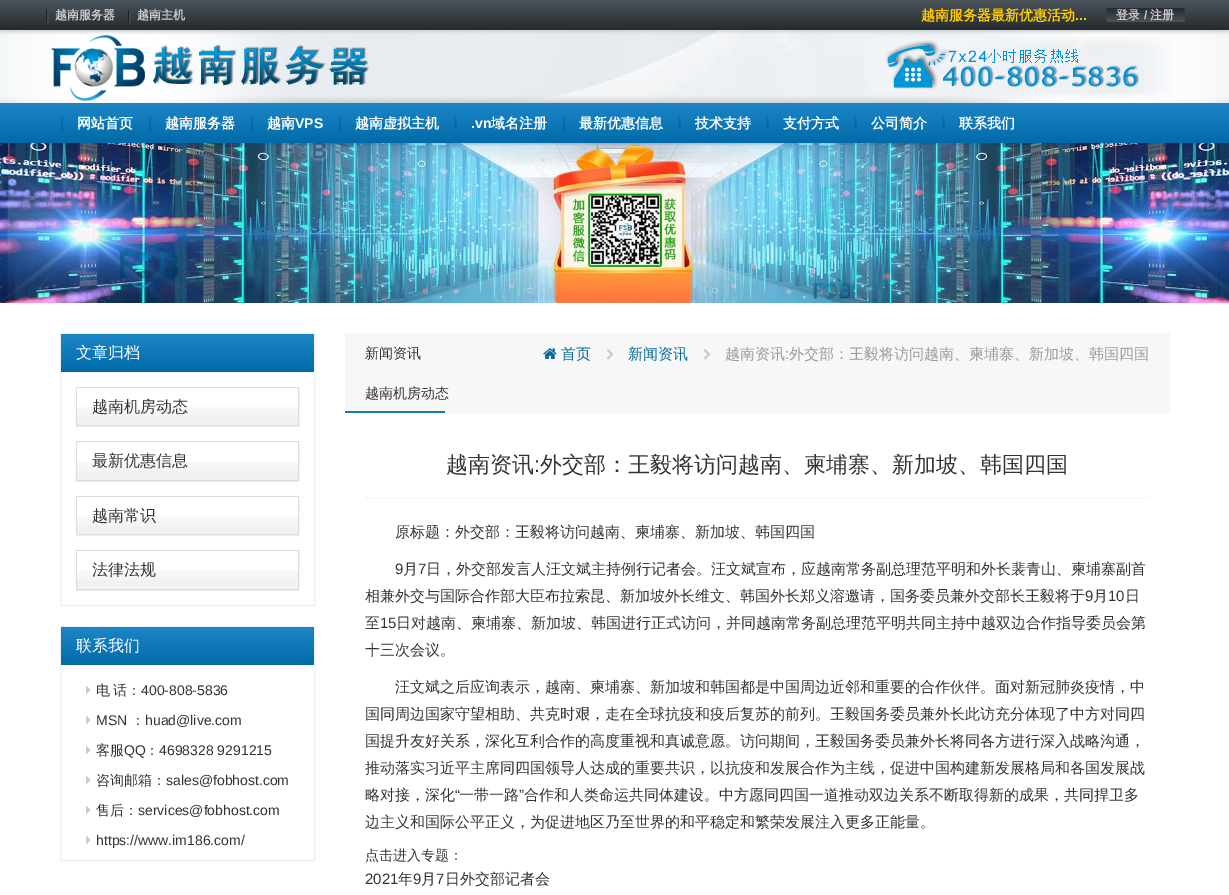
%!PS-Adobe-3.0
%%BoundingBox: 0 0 1229 895
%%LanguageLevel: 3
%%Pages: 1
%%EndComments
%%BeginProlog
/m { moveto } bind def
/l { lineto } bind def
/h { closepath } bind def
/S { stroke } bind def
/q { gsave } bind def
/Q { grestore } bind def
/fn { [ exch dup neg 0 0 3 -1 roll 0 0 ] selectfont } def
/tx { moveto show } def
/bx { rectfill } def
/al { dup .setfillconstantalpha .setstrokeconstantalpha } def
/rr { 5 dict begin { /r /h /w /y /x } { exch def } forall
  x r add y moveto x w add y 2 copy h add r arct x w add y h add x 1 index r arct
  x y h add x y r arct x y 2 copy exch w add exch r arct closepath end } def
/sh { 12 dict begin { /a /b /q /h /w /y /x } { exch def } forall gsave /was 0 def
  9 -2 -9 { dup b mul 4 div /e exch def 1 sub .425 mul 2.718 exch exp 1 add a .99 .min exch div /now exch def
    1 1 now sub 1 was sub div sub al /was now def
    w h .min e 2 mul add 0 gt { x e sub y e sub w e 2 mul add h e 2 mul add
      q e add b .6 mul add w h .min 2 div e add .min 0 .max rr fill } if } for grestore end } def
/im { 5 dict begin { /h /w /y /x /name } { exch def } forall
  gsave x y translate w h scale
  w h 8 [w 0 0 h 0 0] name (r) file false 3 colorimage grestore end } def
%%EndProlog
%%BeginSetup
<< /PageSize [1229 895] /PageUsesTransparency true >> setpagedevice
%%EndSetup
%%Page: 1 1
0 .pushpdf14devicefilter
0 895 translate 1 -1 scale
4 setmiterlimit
1 setgray
0 0 1229 895 bx
0 setgray
0 2 1229 30 0 2 0.2 sh
q 0 0 m 1229 0 l 1229 30 l 0 30 l h clip newpath
<< /ShadingType 2 /ColorSpace /DeviceRGB /Coords [615 0 615 30] /Extend [true true] /Function << /FunctionType 2 /Domain [0 1] /C0 [0.294 0.329 0.357] /C1 [0.149 0.165 0.18] /N 1 >> >> shfill Q
/LiberationSans-Bold 14 fn
0.122 setgray
(|) 45 20 tx
0.282 setgray
(|) 46 20 tx
/WenQuanYiZenHei-Bold 12 fn
0.8 setgray
(越南服务器) 55 19 tx
/LiberationSans-Bold 14 fn
0.122 setgray
(|) 127 20 tx
/WenQuanYiZenHei-Bold 12 fn
0.8 setgray
(越南主机) 137 19 tx
/LiberationSans-Bold 14 fn
0.282 setgray
(|) 128 20 tx
/WenQuanYiZenHei-Bold 14 fn
1 0.8 0 setrgbcolor
(越南服务器最新优惠活动) 921 20 tx
/LiberationSans-Bold 14 fn
(...) 1075 20 tx
q 1106 8 79 14 4 rr clip newpath
<< /ShadingType 2 /ColorSpace /DeviceRGB /Coords [1146 8 1146 22] /Extend [true true] /Function << /FunctionType 2 /Domain [0 1] /C0 [0.149 0.165 0.18] /C1 [0.294 0.329 0.357] /N 1 >> >> shfill Q
/WenQuanYiZenHei-Bold 12 fn
0.8 setgray
(登录) 1116 19 tx
/LiberationSans-Bold 12 fn
(/) 1144 19 tx
/WenQuanYiZenHei-Bold 12 fn
(注册) 1150 19 tx
(image0.raw) 0 30 1229 73 im
(image1.raw) 51 35 318 66 im
(image2.raw) 865 36 306 62 im
(image3.raw) 0 143 1229 160 im
0.008 0.169 0.467 setrgbcolor
0 105 1229 40 0 1 0.16 sh
q 0 103 m 1229 103 l 1229 143 l 0 143 l h clip newpath
<< /ShadingType 2 /ColorSpace /DeviceRGB /Coords [615 103 615 143] /Extend [true true] /Function << /FunctionType 2 /Domain [0 1] /C0 [0.114 0.525 0.78] /C1 [0.004 0.416 0.659] /N 1 >> >> shfill Q
/LiberationSans-Regular 14 fn
0.094 0.365 0.525 setrgbcolor
(|) 60 128 tx
/WenQuanYiZenHei-Bold 14 fn
1 setgray
(网站首页) 77 128 tx
/LiberationSans-Regular 14 fn
0.094 0.365 0.525 setrgbcolor
(|) 148 128 tx
/WenQuanYiZenHei-Bold 14 fn
1 setgray
(越南服务器) 165 128 tx
/LiberationSans-Regular 14 fn
0.094 0.365 0.525 setrgbcolor
(|) 250 128 tx
/WenQuanYiZenHei-Bold 14 fn
1 setgray
(越南) 267 128 tx
/LiberationSans-Bold 14 fn
(VPS) 295 128 tx
/LiberationSans-Regular 14 fn
0.094 0.365 0.525 setrgbcolor
(|) 338 128 tx
/WenQuanYiZenHei-Bold 14 fn
1 setgray
(越南虚拟主机) 355 128 tx
/LiberationSans-Regular 14 fn
0.094 0.365 0.525 setrgbcolor
(|) 454 128 tx
/LiberationSans-Bold 14 fn
1 setgray
(.vn) 471 128 tx
/WenQuanYiZenHei-Bold 14 fn
(域名注册) 491 128 tx
/LiberationSans-Regular 14 fn
0.094 0.365 0.525 setrgbcolor
(|) 562 128 tx
/WenQuanYiZenHei-Bold 14 fn
1 setgray
(最新优惠信息) 579 128 tx
/LiberationSans-Regular 14 fn
0.094 0.365 0.525 setrgbcolor
(|) 678 128 tx
/WenQuanYiZenHei-Bold 14 fn
1 setgray
(技术支持) 695 128 tx
/LiberationSans-Regular 14 fn
0.094 0.365 0.525 setrgbcolor
(|) 766 128 tx
/WenQuanYiZenHei-Bold 14 fn
1 setgray
(支付方式) 783 128 tx
/LiberationSans-Regular 14 fn
0.094 0.365 0.525 setrgbcolor
(|) 854 128 tx
/WenQuanYiZenHei-Bold 14 fn
1 setgray
(公司简介) 871 128 tx
/LiberationSans-Regular 14 fn
0.094 0.365 0.525 setrgbcolor
(|) 942 128 tx
/WenQuanYiZenHei-Bold 14 fn
1 setgray
(联系我们) 959 128 tx
0.933 setgray
60.5 333.5 254 272 rectstroke
q 61 334 m 314 334 l 314 372 l 61 372 l h clip newpath
<< /ShadingType 2 /ColorSpace /DeviceRGB /Coords [188 334 188 372] /Extend [true true] /Function << /FunctionType 2 /Domain [0 1] /C0 [0.114 0.525 0.78] /C1 [0.004 0.416 0.659] /N 1 >> >> shfill Q
/WenQuanYiZenHei-Medium 16 fn
1 setgray
(文章归档) 76 358 tx
0 setgray
76 388 223 39 0 0.5 0.05 sh
0.867 setgray
76.5 387.5 222 38 rectstroke
q 77 388 m 298 388 l 298 417 l 77 417 l h clip newpath
<< /ShadingType 2 /ColorSpace /DeviceRGB /Coords [188 388 188 425] /Extend [true true] /Function << /FunctionType 3 /Domain [0 1] /Functions [<< /FunctionType 2 /Domain [0 1] /C0 [0.996 1 1] /C1 [1 1 1] /N 1 >> << /FunctionType 2 /Domain [0 1] /C0 [1 1 1] /C1 [0.969 0.969 0.969] /N 1 >> << /FunctionType 2 /Domain [0 1] /C0 [0.969 0.969 0.969] /C1 [0.949 0.949 0.949] /N 1 >>] /Bounds [0.51 0.55] /Encode [0 1 0 1 0 1] >> >> shfill Q
0.2 setgray
(越南机房动态) 92 412 tx
0 setgray
76 442 223 40 0 0.5 0.05 sh
0.867 setgray
76.5 441.5 222 39 rectstroke
q 77 442 m 298 442 l 298 471 l 77 471 l h clip newpath
<< /ShadingType 2 /ColorSpace /DeviceRGB /Coords [188 442 188 480] /Extend [true true] /Function << /FunctionType 3 /Domain [0 1] /Functions [<< /FunctionType 2 /Domain [0 1] /C0 [0.996 1 1] /C1 [1 1 1] /N 1 >> << /FunctionType 2 /Domain [0 1] /C0 [1 1 1] /C1 [0.969 0.969 0.969] /N 1 >> << /FunctionType 2 /Domain [0 1] /C0 [0.969 0.969 0.969] /C1 [0.949 0.949 0.949] /N 1 >>] /Bounds [0.51 0.55] /Encode [0 1 0 1 0 1] >> >> shfill Q
0.2 setgray
(最新优惠信息) 92 466 tx
0 setgray
76 497 223 39 0 0.5 0.05 sh
0.867 setgray
76.5 496.5 222 38 rectstroke
q 77 497 m 298 497 l 298 526 l 77 526 l h clip newpath
<< /ShadingType 2 /ColorSpace /DeviceRGB /Coords [188 497 188 534] /Extend [true true] /Function << /FunctionType 3 /Domain [0 1] /Functions [<< /FunctionType 2 /Domain [0 1] /C0 [0.996 1 1] /C1 [1 1 1] /N 1 >> << /FunctionType 2 /Domain [0 1] /C0 [1 1 1] /C1 [0.969 0.969 0.969] /N 1 >> << /FunctionType 2 /Domain [0 1] /C0 [0.969 0.969 0.969] /C1 [0.949 0.949 0.949] /N 1 >>] /Bounds [0.51 0.55] /Encode [0 1 0 1 0 1] >> >> shfill Q
0.2 setgray
(越南常识) 92 521 tx
0 setgray
76 551 223 40 0 0.5 0.05 sh
0.867 setgray
76.5 550.5 222 39 rectstroke
q 77 551 m 298 551 l 298 580 l 77 580 l h clip newpath
<< /ShadingType 2 /ColorSpace /DeviceRGB /Coords [188 551 188 589] /Extend [true true] /Function << /FunctionType 3 /Domain [0 1] /Functions [<< /FunctionType 2 /Domain [0 1] /C0 [0.996 1 1] /C1 [1 1 1] /N 1 >> << /FunctionType 2 /Domain [0 1] /C0 [1 1 1] /C1 [0.969 0.969 0.969] /N 1 >> << /FunctionType 2 /Domain [0 1] /C0 [0.969 0.969 0.969] /C1 [0.949 0.949 0.949] /N 1 >>] /Bounds [0.51 0.55] /Encode [0 1 0 1 0 1] >> >> shfill Q
0.2 setgray
(法律法规) 92 575 tx
0.933 setgray
60.5 626.5 254 234 rectstroke
q 61 627 m 314 627 l 314 665 l 61 665 l h clip newpath
<< /ShadingType 2 /ColorSpace /DeviceRGB /Coords [188 627 188 665] /Extend [true true] /Function << /FunctionType 2 /Domain [0 1] /C0 [0.114 0.525 0.78] /C1 [0.004 0.416 0.659] /N 1 >> >> shfill Q
1 setgray
(联系我们) 76 651 tx
(image4.raw) 86 686 5 8 im
/WenQuanYiZenHei-Medium 14 fn
0.2 setgray
(电) 96 695 tx
(话：) 113 695 tx
/LiberationSans-Regular 14 fn
(400-808-5836) 141 695 tx
(image4.raw) 86 716 5 8 im
(MSN) 96 725 tx
/WenQuanYiZenHei-Medium 14 fn
(：) 131 725 tx
/LiberationSans-Regular 14 fn
(huad@live.com) 145 725 tx
(image4.raw) 86 746 5 8 im
/WenQuanYiZenHei-Medium 14 fn
(客服) 96 755 tx
/LiberationSans-Regular 14 fn
(QQ) 124 755 tx
/WenQuanYiZenHei-Medium 14 fn
(：) 145 755 tx
/LiberationSans-Regular 14 fn
(4698328 9291215) 159 755 tx
(image4.raw) 86 776 5 8 im
/WenQuanYiZenHei-Medium 14 fn
(咨询邮箱：) 96 785 tx
/LiberationSans-Regular 14 fn
(sales@fobhost.com) 166 785 tx
(image4.raw) 86 806 5 8 im
/WenQuanYiZenHei-Medium 14 fn
(售后：) 96 815 tx
/LiberationSans-Regular 14 fn
(services@fobhost.com) 138 815 tx
(image4.raw) 86 836 5 8 im
(https://www.im186.com/) 96 845 tx
0.969 setgray
345 333 825 80 bx
/WenQuanYiZenHei-Medium 14 fn
0.2 setgray
(新闻资讯) 365 358 tx
(越南机房动态) 365 398 tx
0.075 0.478 0.733 setrgbcolor
345 411 100 2 bx
(image5.raw) 543 348 14 11 im
/WenQuanYiZenHei-Medium 15 fn
0.035 0.416 0.616 setrgbcolor
(首页) 561 359 tx
(image6.raw) 606 349 8 11 im
(新闻资讯) 628 359 tx
(image6.raw) 703 349 8 11 im
0.6 setgray
(越南资讯) 725 359 tx
/LiberationSans-Regular 15 fn
(:) 785 359 tx
/WenQuanYiZenHei-Medium 15 fn
(外交部：王毅将访问越南、柬埔寨、新加坡、韩国四国) 789 359 tx
0.933 setgray
[1 1] 0 setdash
365 497.5 m 1150 497.5 l S
/WenQuanYiZenHei-Medium 22 fn
0.2 setgray
(越南资讯) 446 472 tx
/LiberationSans-Regular 22 fn
(:) 534 472 tx
/WenQuanYiZenHei-Medium 22 fn
(外交部：王毅将访问越南、柬埔寨、新加坡、韩国四国) 540 472 tx
/WenQuanYiZenHei-Medium 15 fn
(原标题：外交部：王毅将访问越南、柬埔寨、新加坡、韩国四国) 395 537 tx
/LiberationSans-Regular 15 fn
(9) 395 574 tx
/WenQuanYiZenHei-Medium 15 fn
(月) 403 574 tx
/LiberationSans-Regular 15 fn
(7) 418 574 tx
/WenQuanYiZenHei-Medium 15 fn
(日，外交部发言人汪文斌主持例行记者会。汪文斌宣布，应越南常务副总理范平明和外长裴青山、柬埔寨副首) 426 574 tx
(相兼外交与国际合作部大臣布拉索昆、新加坡外长维文、韩国外长郑义溶邀请，国务委员兼外交部长王毅将于) 365 601 tx
/LiberationSans-Regular 15 fn
(9) 1085 601 tx
/WenQuanYiZenHei-Medium 15 fn
(月) 1093 601 tx
/LiberationSans-Regular 15 fn
(10) 1108 601 tx
/WenQuanYiZenHei-Medium 15 fn
(日) 1125 601 tx
(至) 365 628 tx
/LiberationSans-Regular 15 fn
(15) 380 628 tx
/WenQuanYiZenHei-Medium 15 fn
(日对越南、柬埔寨、新加坡、韩国进行正式访问，并同越南常务副总理范平明共同主持中越双边合作指导委员会第) 396 628 tx
(十三次会议。) 365 655 tx
(汪文斌之后应询表示，越南、柬埔寨、新加坡和韩国都是中国周边近邻和重要的合作伙伴。面对新冠肺炎疫情，中) 395 692 tx
(国同周边国家守望相助、共克时艰，走在全球抗疫和疫后复苏的前列。王毅国务委员兼外长此访充分体现了中方对同四) 365 719 tx
(国提升友好关系，深化互利合作的高度重视和真诚意愿。访问期间，王毅国务委员兼外长将同各方进行深入战略沟通，) 365 746 tx
(推动落实习近平主席同四国领导人达成的重要共识，以抗疫和发展合作为主线，促进中国构建新发展格局和各国发展战) 365 773 tx
(略对接，深化) 365 800 tx
/LiberationSans-Regular 15 fn
(“) 455 800 tx
/WenQuanYiZenHei-Medium 15 fn
(一带一路) 459 800 tx
/LiberationSans-Regular 15 fn
(”) 519 800 tx
/WenQuanYiZenHei-Medium 15 fn
(合作和人类命运共同体建设。中方愿同四国一道推动双边关系不断取得新的成果，共同捍卫多) 524 800 tx
(边主义和国际公平正义，为促进地区乃至世界的和平稳定和繁荣发展注入更多正能量。) 365 827 tx
/WenQuanYiZenHei-Medium 14 fn
(点击进入专题：) 365 860 tx
/LiberationSans-Regular 15 fn
(2021) 365 884 tx
/WenQuanYiZenHei-Medium 15 fn
(年) 398 884 tx
/LiberationSans-Regular 15 fn
(9) 413 884 tx
/WenQuanYiZenHei-Medium 15 fn
(月) 421 884 tx
/LiberationSans-Regular 15 fn
(7) 436 884 tx
/WenQuanYiZenHei-Medium 15 fn
(日外交部记者会) 445 884 tx
.poppdf14devicefilter showpage
%%EOF
